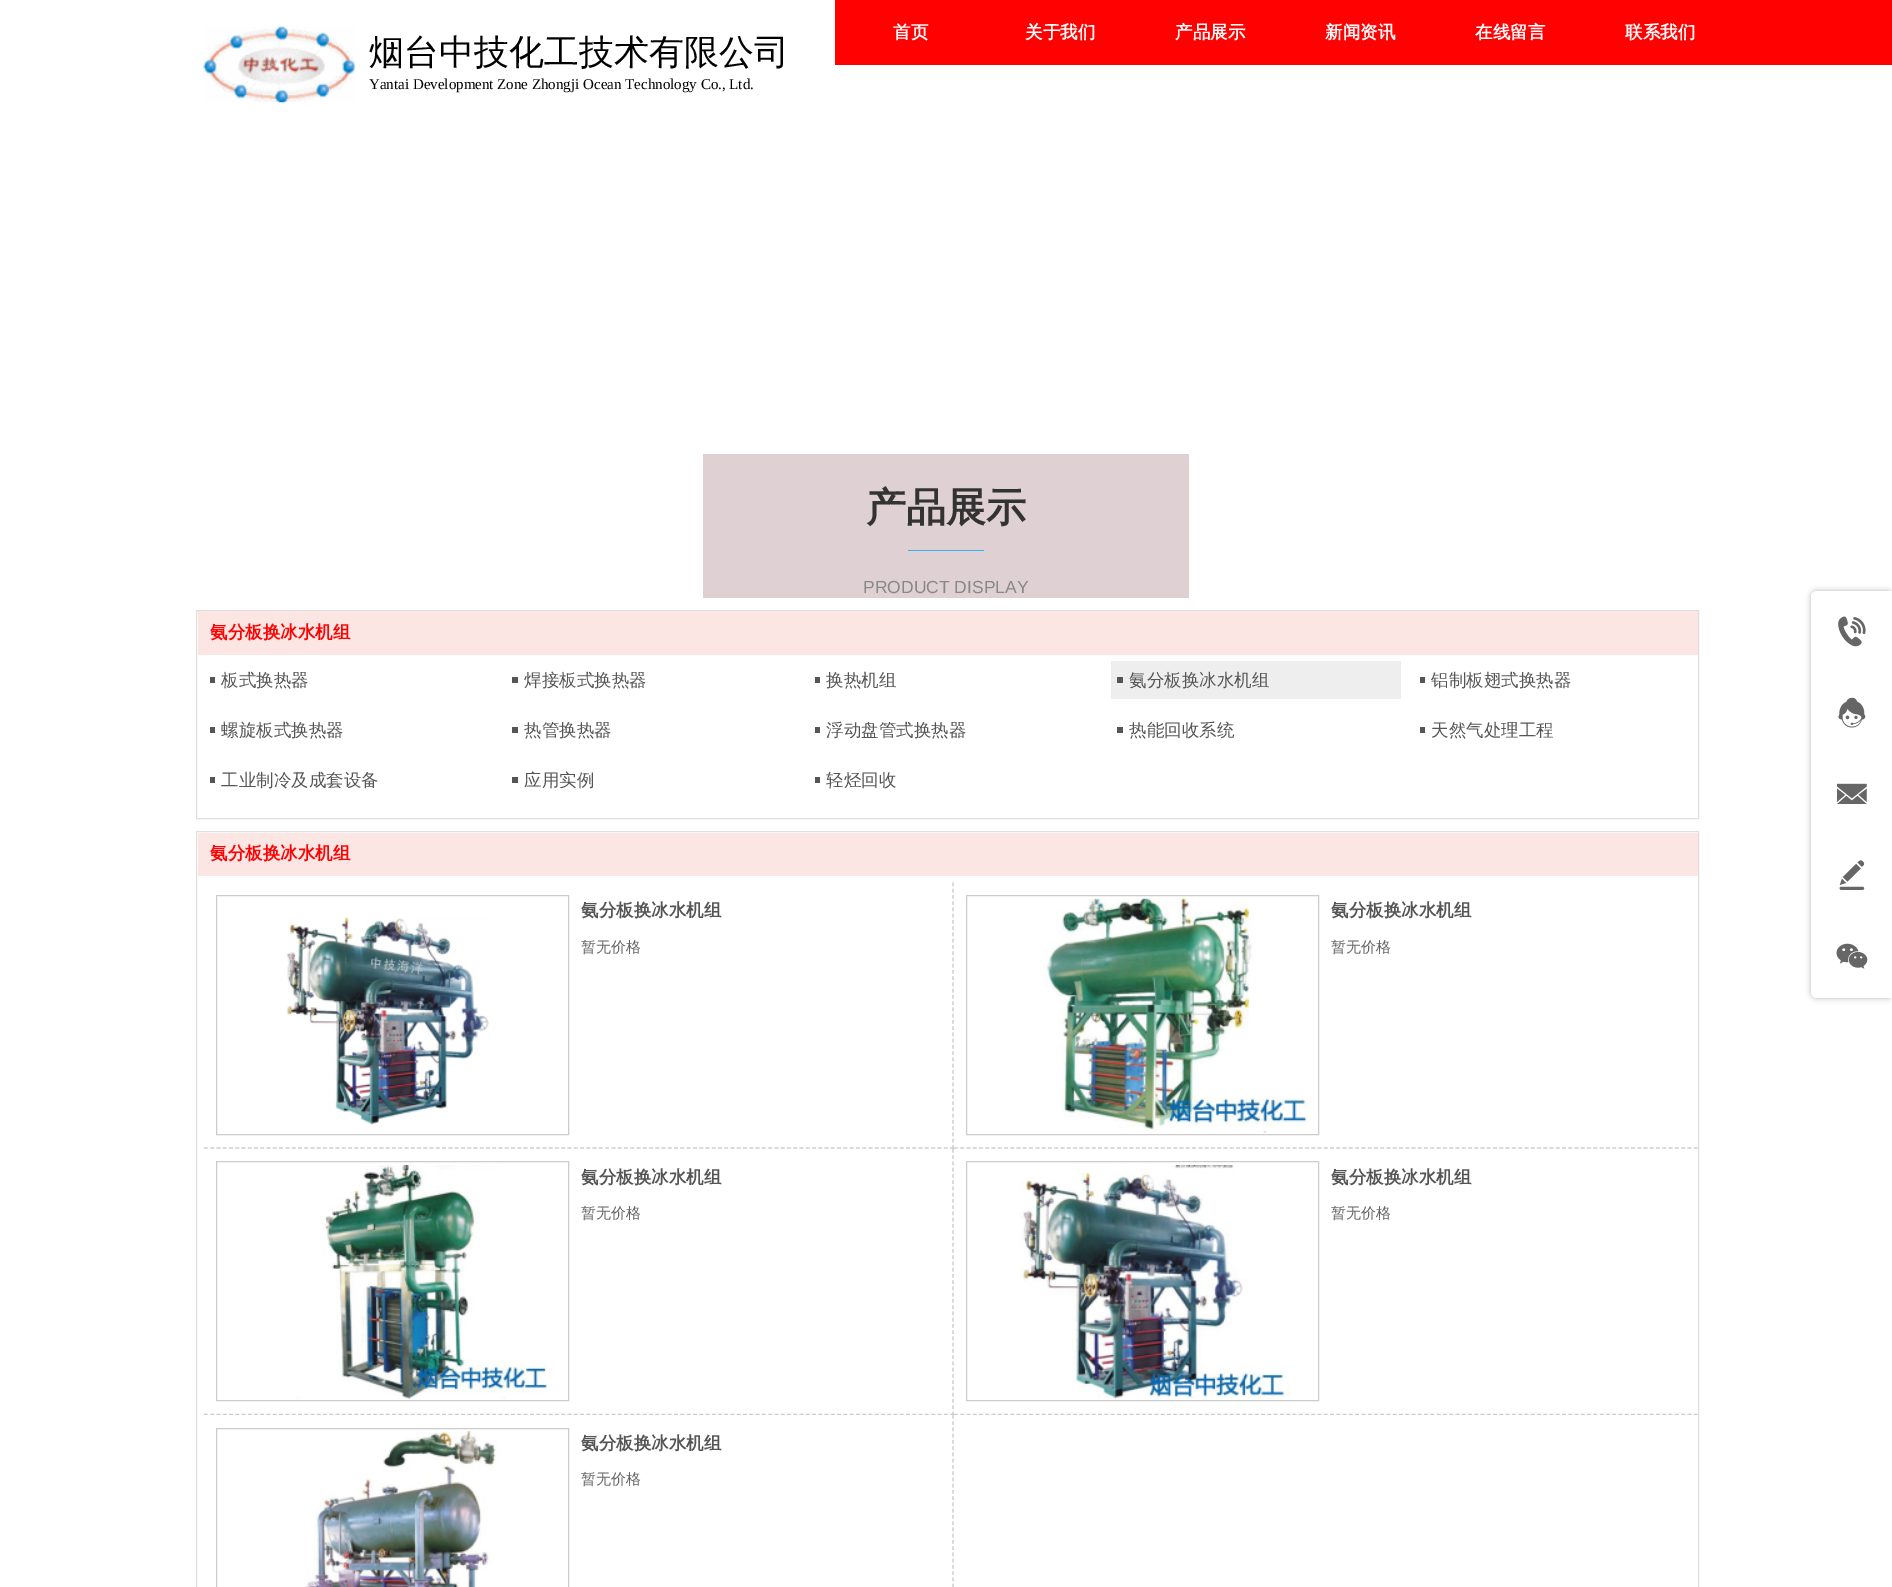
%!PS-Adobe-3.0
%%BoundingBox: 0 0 1892 1587
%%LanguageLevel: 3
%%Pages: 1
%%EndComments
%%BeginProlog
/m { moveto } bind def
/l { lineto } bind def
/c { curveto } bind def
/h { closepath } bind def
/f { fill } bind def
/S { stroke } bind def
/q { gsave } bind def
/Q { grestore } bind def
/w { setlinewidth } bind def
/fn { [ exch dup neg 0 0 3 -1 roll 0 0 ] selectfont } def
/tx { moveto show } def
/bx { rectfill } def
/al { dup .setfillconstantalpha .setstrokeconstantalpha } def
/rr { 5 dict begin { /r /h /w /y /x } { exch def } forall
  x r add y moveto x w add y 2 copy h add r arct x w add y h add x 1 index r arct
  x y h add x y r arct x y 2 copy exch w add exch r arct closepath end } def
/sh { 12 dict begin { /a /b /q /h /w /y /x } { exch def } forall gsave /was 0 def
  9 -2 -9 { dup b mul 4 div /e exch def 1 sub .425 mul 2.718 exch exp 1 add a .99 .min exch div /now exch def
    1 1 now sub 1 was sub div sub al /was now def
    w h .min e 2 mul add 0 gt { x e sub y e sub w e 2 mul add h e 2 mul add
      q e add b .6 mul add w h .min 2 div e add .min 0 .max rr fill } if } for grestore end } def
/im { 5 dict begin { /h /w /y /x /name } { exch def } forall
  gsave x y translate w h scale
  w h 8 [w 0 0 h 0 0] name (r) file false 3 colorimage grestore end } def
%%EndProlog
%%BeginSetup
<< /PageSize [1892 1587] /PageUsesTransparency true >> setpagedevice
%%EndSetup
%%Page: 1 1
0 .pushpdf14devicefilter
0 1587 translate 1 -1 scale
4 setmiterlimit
1 setgray
0 0 1892 1587 bx
1 0.004 0.004 setrgbcolor
835 0 1057 65 bx
/WenQuanYiZenHei-Bold 17.5 fn
1 setgray
(首页) 893 38 tx
(关于我们) 1025 38 tx
(产品展示) 1175 38 tx
(新闻资讯) 1325 38 tx
(在线留言) 1475 38 tx
(联系我们) 1625 38 tx
(image0.raw) 202 26 153 77 im
/WenQuanYiZenHei-Medium 35 fn
0 setgray
(烟台中技化工技术有限公司) 369 64 tx
/LiberationSerif-Regular 15 fn
(Yantai Development Zone Zhongji Ocean Technology Co., Ltd.) 369 89 tx
0.875 0.816 0.827 setrgbcolor
703 454 486 144 bx
/WenQuanYiZenHei-Bold 40 fn
0.2 setgray
(产品展示) 866 521 tx
0.212 0.69 0.953 setrgbcolor
908 550 76 1 bx
/LiberationSans-Regular 17.5 fn
0.533 setgray
(PRODUCT DISPLAY) 863 593 tx
0.878 0.875 0.867 setrgbcolor
196.5 610.5 1502 208 rectstroke
0.984 0.902 0.89 setrgbcolor
198 611 1500 44 bx
/WenQuanYiZenHei-Bold 17.5 fn
1 0.004 0.004 setrgbcolor
(氨分板换冰水机组) 210 638 tx
0.333 setgray
210 677 5 6 bx
/WenQuanYiZenHei-Medium 17.5 fn
(板式换热器) 221 686 tx
512 677 6 6 bx
(焊接板式换热器) 524 686 tx
815 677 5 6 bx
(换热机组) 826 686 tx
0.933 setgray
1111 661 290 38 bx
0.333 setgray
1117 677 6 6 bx
(氨分板换冰水机组) 1129 686 tx
1420 677 5 6 bx
(铝制板翅式换热器) 1431 686 tx
210 727 5 6 bx
(螺旋板式换热器) 221 736 tx
512 727 6 6 bx
(热管换热器) 524 736 tx
815 727 5 6 bx
(浮动盘管式换热器) 826 736 tx
1117 727 6 6 bx
(热能回收系统) 1129 736 tx
1420 727 5 6 bx
(天然气处理工程) 1431 736 tx
210 777 5 6 bx
(工业制冷及成套设备) 221 786 tx
512 777 6 6 bx
(应用实例) 524 786 tx
815 777 5 6 bx
(轻烃回收) 826 786 tx
0.878 0.875 0.867 setrgbcolor
196.5 831.5 1502 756 rectstroke
0.984 0.902 0.89 setrgbcolor
198 833 1500 43 bx
/WenQuanYiZenHei-Bold 17.5 fn
1 0.004 0.004 setrgbcolor
(氨分板换冰水机组) 210 859 tx
0.8 setgray
1.2 w
[3.75 2.5] 0 setdash
953 882.5 m 953 1149 l S
[3.75 2.52] 0 setdash
204 1148 m 954 1148 l S
1 w
[] 0 setdash
216.5 895.5 352 239 rectstroke
(image1.raw) 286 917 203 208 im
0.333 setgray
(氨分板换冰水机组) 581 916 tx
/WenQuanYiZenHei-Medium 15 fn
0.4 setgray
(暂无价格) 581 952 tx
q
954 883 744 266 rectclip
0.8 setgray
1.2 w
[3.75 2.52] 0 setdash
954 1148 m 1704 1148 l S
Q
0.8 setgray
966.5 895.5 352 239 rectstroke
(image2.raw) 1044 898 268 235 im
/WenQuanYiZenHei-Bold 17.5 fn
0.333 setgray
(氨分板换冰水机组) 1331 916 tx
/WenQuanYiZenHei-Medium 15 fn
0.4 setgray
(暂无价格) 1331 952 tx
0.8 setgray
1.2 w
[3.75 2.5] 0 setdash
953 1149 m 953 1415 l S
q
204 1149 750 266 rectclip
[3.75 2.52] 0 setdash
204 1414.5 m 954 1414.5 l S
Q
1 w
[] 0 setdash
216.5 1161.5 352 239 rectstroke
(image3.raw) 297 1165 250 234 im
/WenQuanYiZenHei-Bold 17.5 fn
0.333 setgray
(氨分板换冰水机组) 581 1183 tx
/WenQuanYiZenHei-Medium 15 fn
0.4 setgray
(暂无价格) 581 1218 tx
q
954 1149 744 266 rectclip
0.8 setgray
1.2 w
[3.75 2.52] 0 setdash
954 1414.5 m 1704 1414.5 l S
Q
0.8 setgray
966.5 1161.5 352 239 rectstroke
(image4.raw) 1020 1165 271 234 im
/WenQuanYiZenHei-Bold 17.5 fn
0.333 setgray
(氨分板换冰水机组) 1331 1183 tx
/WenQuanYiZenHei-Medium 15 fn
0.4 setgray
(暂无价格) 1331 1218 tx
0.8 setgray
1.2 w
[3.75 2.5] 0 setdash
953 1415 m 953 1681 l S
1 w
[] 0 setdash
216.5 1428.5 352 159 rectstroke
(image5.raw) 306 1431 195 156 im
/WenQuanYiZenHei-Bold 17.5 fn
0.333 setgray
(氨分板换冰水机组) 581 1449 tx
/WenQuanYiZenHei-Medium 15 fn
0.4 setgray
(暂无价格) 581 1484 tx
0 setgray
1811 591 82 407 6 3 0.3 sh
1 setgray
1817 591 m 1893 591 l 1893 998 l 1817 998 l 1813.5 998 1811 995.5 1811 992 c 1811 597 l 1811 593.5 1813.5 591 1817 591 c h f
(image6.raw) 1838 616 28 31 im
(image7.raw) 1838 697 28 31 im
(image8.raw) 1837 783 30 21 im
(image9.raw) 1839 860 26 30 im
(image10.raw) 1836 943 32 26 im
.poppdf14devicefilter showpage
%%EOF
